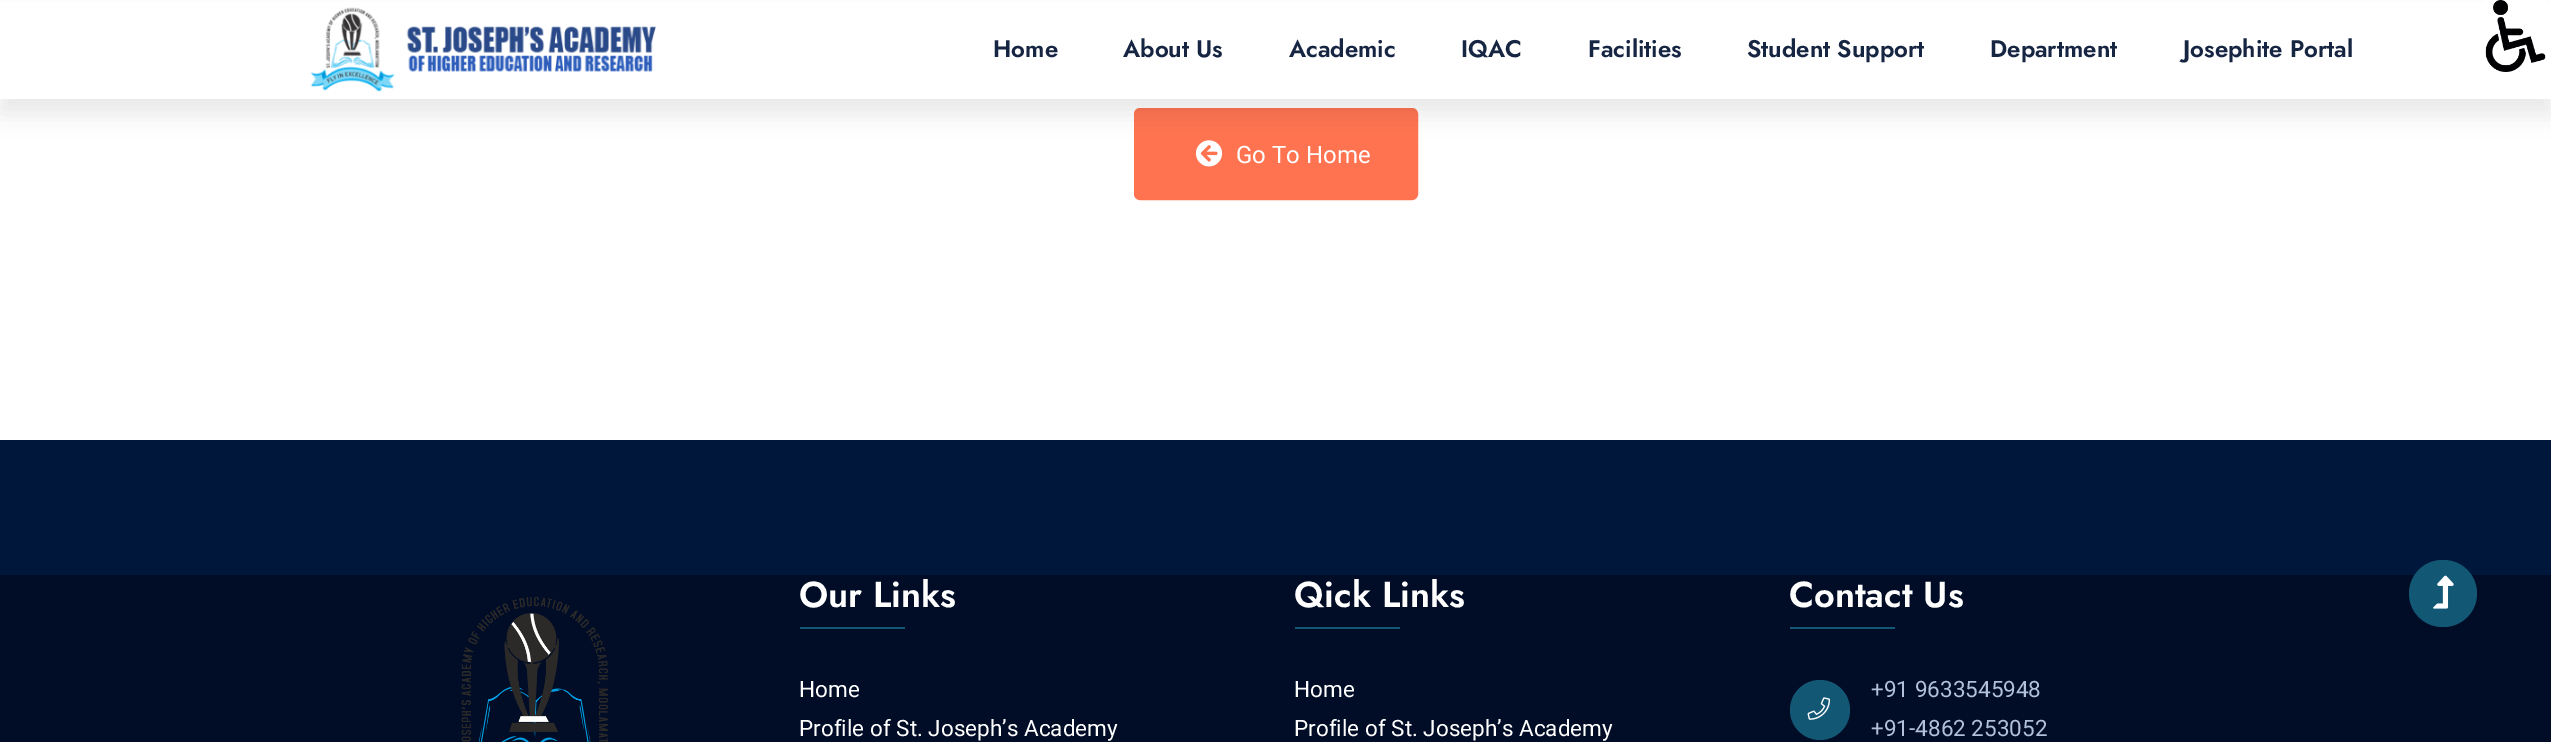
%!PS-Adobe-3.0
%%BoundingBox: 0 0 2551 742
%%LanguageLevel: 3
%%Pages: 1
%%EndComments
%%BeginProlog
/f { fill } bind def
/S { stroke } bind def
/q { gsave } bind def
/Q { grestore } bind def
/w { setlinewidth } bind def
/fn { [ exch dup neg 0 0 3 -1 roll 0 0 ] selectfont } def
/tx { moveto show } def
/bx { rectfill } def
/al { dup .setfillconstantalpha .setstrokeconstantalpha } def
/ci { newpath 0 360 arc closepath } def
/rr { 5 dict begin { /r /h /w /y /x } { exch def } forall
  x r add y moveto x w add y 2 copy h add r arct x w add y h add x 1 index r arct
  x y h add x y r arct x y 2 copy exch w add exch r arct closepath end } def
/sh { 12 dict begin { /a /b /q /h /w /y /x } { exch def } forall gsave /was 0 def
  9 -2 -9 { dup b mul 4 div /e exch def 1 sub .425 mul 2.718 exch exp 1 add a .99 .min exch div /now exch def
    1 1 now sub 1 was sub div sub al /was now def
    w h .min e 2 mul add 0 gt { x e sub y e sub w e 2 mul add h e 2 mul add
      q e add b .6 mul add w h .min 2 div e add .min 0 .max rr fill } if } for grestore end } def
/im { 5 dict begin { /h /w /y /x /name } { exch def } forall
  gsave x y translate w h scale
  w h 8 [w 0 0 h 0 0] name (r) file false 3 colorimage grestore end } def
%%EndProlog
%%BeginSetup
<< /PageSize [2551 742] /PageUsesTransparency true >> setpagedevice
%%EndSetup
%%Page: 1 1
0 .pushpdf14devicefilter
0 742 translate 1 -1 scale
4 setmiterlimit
1 setgray
0 0 2551 742 bx
1 0.451 0.314 setrgbcolor
1135 109 282 90 5 rr q f Q
2 w
S
(image2.raw) 1195 140 28 27 im
0.098 setgray
0 15 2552 99 0 11 0.1 sh
1 setgray
0 2 2551 97 bx
(image0.raw) 310 7 346 85 im
/Jost-SemiBold 24 fn
0.086 0.145 0.259 setrgbcolor
(Home) 993 57 tx
(About Us) 1123 57 tx
(Academic) 1289 57 tx
(IQAC) 1461 57 tx
(Facilities) 1588 57 tx
(Student Support) 1747 57 tx
(Department) 1990 57 tx
(Josephite Portal) 2183 57 tx
(image1.raw) 2485 0 61 72 im
/Roboto-Regular 24 fn
1 setgray
(Go To Home) 1236 163 tx
0 0.09 0.235 setrgbcolor
0 440 2551 135 bx
0.004 0.047 0.149 setrgbcolor
0 575 2551 167 bx
(image3.raw) 461 597 147 145 im
/Jost-SemiBold 36 fn
1 setgray
(Our Links) 799 607 tx
0.071 0.345 0.459 setrgbcolor
800 627 105 2 bx
/Roboto-Regular 22.5 fn
1 setgray
(Home) 799 697 tx
(Profile of St. Joseph’s Academy) 799 736 tx
/Jost-SemiBold 36 fn
(Qick Links) 1294 607 tx
0.071 0.345 0.459 setrgbcolor
1295 627 105 2 bx
/Roboto-Regular 22.5 fn
1 setgray
(Home) 1294 697 tx
(Profile of St. Joseph’s Academy) 1294 736 tx
/Jost-SemiBold 36 fn
(Contact Us) 1789 607 tx
0.071 0.345 0.459 setrgbcolor
1790 627 105 2 bx
1820 710 30 ci f
(image4.raw) 1807 697 23 23 im
/Roboto-Regular 22.5 fn
0.698 0.753 0.847 setrgbcolor
(+91 9633545948) 1871 697 tx
(+91-4862 253052) 1871 736 tx
0.071 0.345 0.459 setrgbcolor
2409 560 68 67 33.5 rr f
(image5.raw) 2433 575 21 34 im
.poppdf14devicefilter showpage
%%EOF
